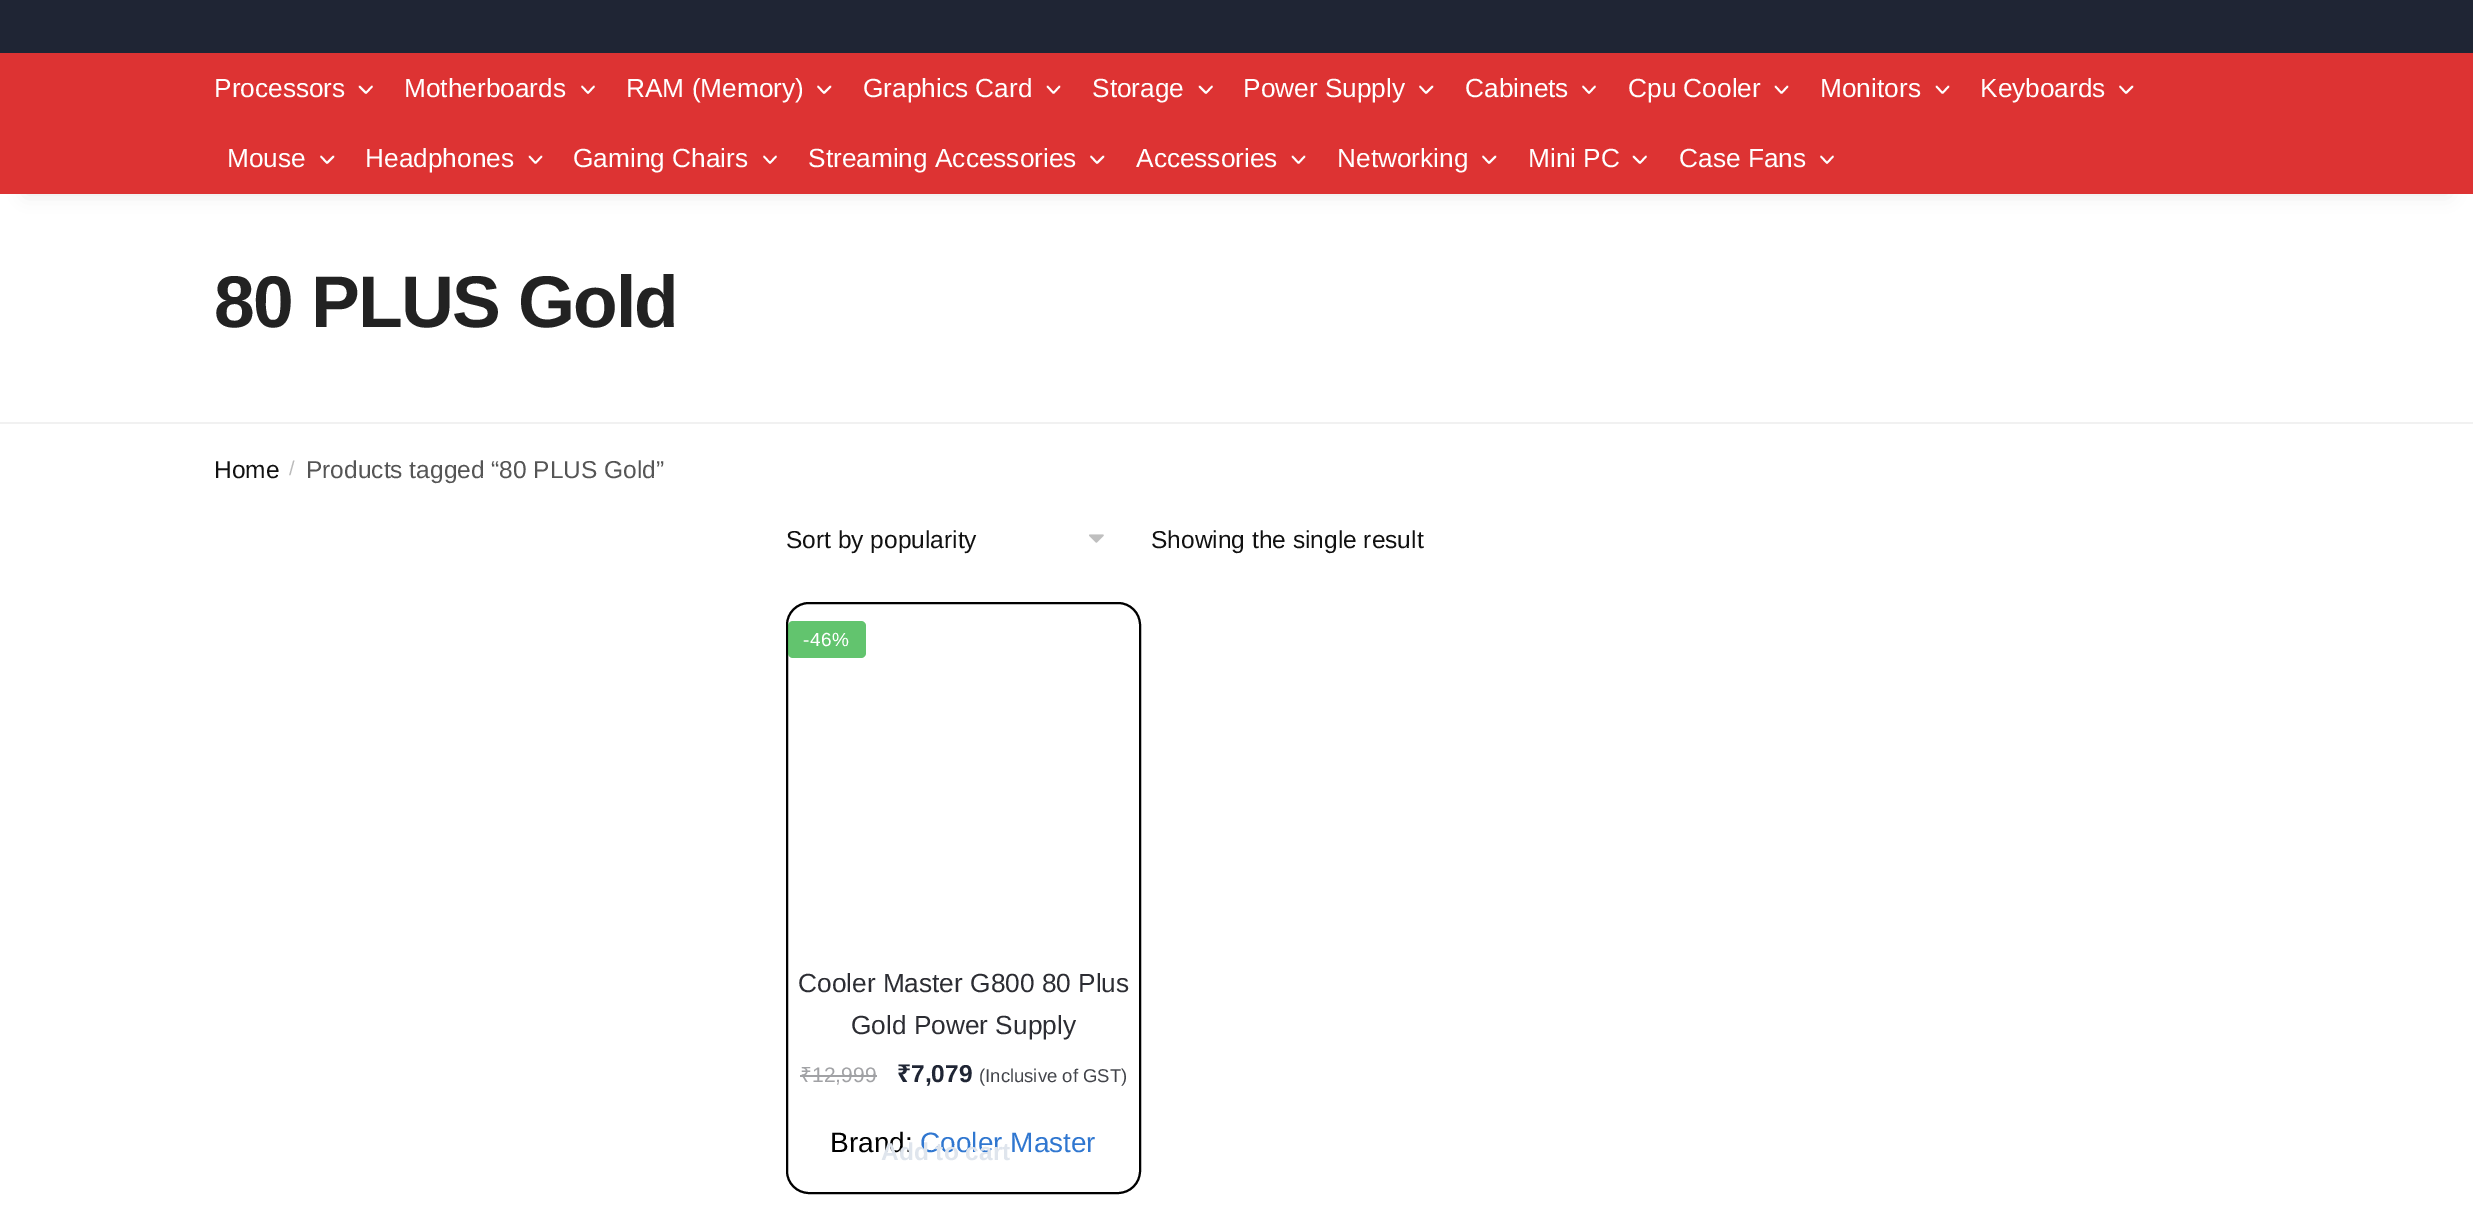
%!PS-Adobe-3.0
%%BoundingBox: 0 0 2473 1229
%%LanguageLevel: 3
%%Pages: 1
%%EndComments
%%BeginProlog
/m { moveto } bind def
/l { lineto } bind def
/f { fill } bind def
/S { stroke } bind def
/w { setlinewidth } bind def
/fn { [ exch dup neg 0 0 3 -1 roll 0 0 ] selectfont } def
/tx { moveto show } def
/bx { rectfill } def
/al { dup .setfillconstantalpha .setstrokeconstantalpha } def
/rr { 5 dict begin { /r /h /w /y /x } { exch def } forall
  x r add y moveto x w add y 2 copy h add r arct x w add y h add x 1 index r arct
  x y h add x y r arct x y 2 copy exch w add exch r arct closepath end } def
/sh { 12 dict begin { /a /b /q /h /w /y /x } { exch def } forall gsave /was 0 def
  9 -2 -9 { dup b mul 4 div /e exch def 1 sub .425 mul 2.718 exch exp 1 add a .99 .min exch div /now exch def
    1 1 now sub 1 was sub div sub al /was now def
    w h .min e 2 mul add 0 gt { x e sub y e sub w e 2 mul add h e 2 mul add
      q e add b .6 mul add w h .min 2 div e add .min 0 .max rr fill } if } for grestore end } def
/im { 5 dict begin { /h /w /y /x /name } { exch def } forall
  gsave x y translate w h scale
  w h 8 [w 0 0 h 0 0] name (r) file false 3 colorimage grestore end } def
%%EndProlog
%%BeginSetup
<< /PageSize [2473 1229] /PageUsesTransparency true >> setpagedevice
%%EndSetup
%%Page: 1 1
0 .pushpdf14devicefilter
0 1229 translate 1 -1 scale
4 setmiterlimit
1 setgray
0 0 2473 1229 bx
0.122 0.145 0.204 setrgbcolor
0 0 2473 53 bx
0 setgray
26 105 2422 89 0 9 0.1 sh
0.867 0.2 0.2 setrgbcolor
0 53 2473 141 bx
/LiberationSans-Regular 26.25 fn
1 setgray
(Processors) 214 97 tx
1.8 w
1 setlinecap
1 setlinejoin
372 86.5 m 366 93 l 359.5 86.5 l S
(Motherboards) 404 97 tx
594 86.5 m 588 93 l 582 86.5 l S
(RAM \(Memory\)) 626 97 tx
830.5 86.5 m 824 93 l 818 86.5 l S
(Graphics Card) 863 97 tx
1059.5 86.5 m 1053.5 93 l 1047.5 86.5 l S
(Storage) 1092 97 tx
1212 86.5 m 1206 93 l 1199.5 86.5 l S
(Power Supply) 1243 97 tx
1432.5 86.5 m 1426 93 l 1420 86.5 l S
(Cabinets) 1465 97 tx
1595 86.5 m 1589 93 l 1583 86.5 l S
(Cpu Cooler) 1628 97 tx
1787.5 86.5 m 1781.5 93 l 1775.5 86.5 l S
(Monitors) 1820 97 tx
1948.5 86.5 m 1942.5 93 l 1936.5 86.5 l S
(Keyboards) 1980 97 tx
2132.5 86.5 m 2126 93 l 2120 86.5 l S
(Mouse) 227 167 tx
333.5 156.5 m 327 163 l 321 156.5 l S
(Headphones) 365 167 tx
541.5 156.5 m 535.5 163 l 529.5 156.5 l S
(Gaming Chairs) 573 167 tx
776 156.5 m 770 163 l 764 156.5 l S
(Streaming Accessories) 808 167 tx
1103.5 156.5 m 1097 163 l 1091 156.5 l S
(Accessories) 1136 167 tx
1304.5 156.5 m 1298.5 163 l 1292.5 156.5 l S
(Networking) 1337 167 tx
1495.5 156.5 m 1489 163 l 1483 156.5 l S
(Mini PC) 1528 167 tx
1646 156.5 m 1640 163 l 1633.5 156.5 l S
(Case Fans) 1679 167 tx
1833 156.5 m 1827 163 l 1821 156.5 l S
0.945 setgray
0 422 2473 2 bx
/LiberationSans-Bold 73.25 fn
0.133 setgray
214 327 m -1.75 0 (80 PLUS Gold) ashow
/LiberationSans-Regular 24.5 fn
0.067 setgray
(Home) 214 478 tx
/LiberationSans-Regular 20 fn
0.733 setgray
(/) 289 475 tx
/LiberationSans-Regular 24.5 fn
0.333 setgray
(Products tagged “80 PLUS Gold”) 306 478 tx
(image0.raw) 1089 534 15 9 im
0.067 setgray
(Sort by popularity) 786 548 tx
(Showing the single result) 1151 548 tx
0 setgray
2 w
0 setlinecap
0 setlinejoin
787 603 353 590 22 rr S
0.8 al
0.231 0.71 0.29 setrgbcolor
788 621 78 37 5 rr f
/LiberationSans-Regular 19 fn
1 al
1 setgray
803 646 m 0.5 0 (-46%) ashow
/LiberationSans-Regular 26.25 fn
0.173 0.176 0.2 setrgbcolor
(Cooler Master G800 80 Plus) 798 992 tx
(Gold Power Supply) 851 1034 tx
/NotoSans-Regular 21 fn
0.631 0.635 0.647 setrgbcolor
(₹) 800 1082 tx
/LiberationSans-Regular 21 fn
(12,999) 812 1082 tx
812 1075 65 2 bx
800 1075 12 2 bx
/NotoSans-Bold 24.5 fn
0.122 0.145 0.204 setrgbcolor
(₹) 897 1082 tx
/LiberationSans-Bold 24.5 fn
(7,079) 911 1082 tx
/LiberationSans-Regular 18.5 fn
0.263 0.271 0.294 setrgbcolor
(\(Inclusive of GST\)) 979 1082 tx
/LiberationSans-Regular 28 fn
0 setgray
(Brand:) 830 1152 tx
0.188 0.467 0.816 setrgbcolor
(Cooler Master) 920 1152 tx
/LiberationSans-Bold 24.5 fn
0.875 0.898 0.929 setrgbcolor
(Add to cart) 881 1160 tx
.poppdf14devicefilter showpage
%%EOF
